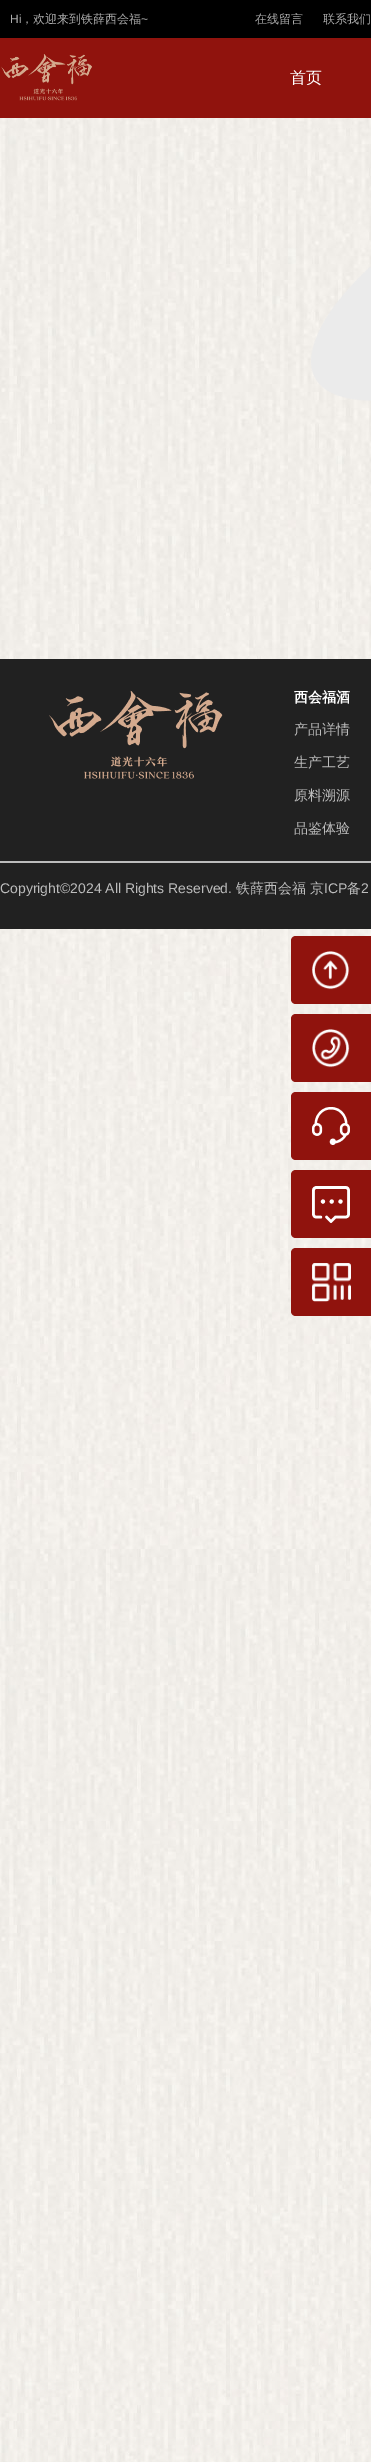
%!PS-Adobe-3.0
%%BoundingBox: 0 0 371 2462
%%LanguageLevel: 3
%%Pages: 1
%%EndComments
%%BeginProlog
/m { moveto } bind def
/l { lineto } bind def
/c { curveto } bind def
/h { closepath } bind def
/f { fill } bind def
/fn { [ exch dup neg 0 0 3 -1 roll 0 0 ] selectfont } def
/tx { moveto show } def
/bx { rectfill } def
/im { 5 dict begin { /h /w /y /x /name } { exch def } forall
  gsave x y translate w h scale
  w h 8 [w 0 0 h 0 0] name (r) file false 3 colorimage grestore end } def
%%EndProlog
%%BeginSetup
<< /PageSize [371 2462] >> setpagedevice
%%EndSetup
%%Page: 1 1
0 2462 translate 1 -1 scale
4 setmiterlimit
1 setgray
0 0 371 2462 bx
(image0.raw) 0 929 371 1533 im
(image1.raw) 0 118 371 541 im
0 setgray
0 0 371 38 bx
/LiberationSans-Regular 12 fn
0.675 setgray
(Hi) 10 23 tx
/WenQuanYiZenHei-Medium 12 fn
(，欢迎来到铁薛西会福) 21 23 tx
/LiberationSans-Regular 12 fn
(~) 141 23 tx
/WenQuanYiZenHei-Medium 12 fn
(在线留言) 255 23 tx
(联系我们) 323 23 tx
0.565 0.075 0.051 setrgbcolor
0 38 371 80 bx
(image2.raw) 1 54 91 47 im
/WenQuanYiZenHei-Medium 16 fn
1 setgray
(首页) 290 83 tx
0.565 0.075 0.051 setrgbcolor
296 936 m 371 936 l 371 1004 l 296 1004 l 293 1004 291 1002 291 999 c 291 941 l 291 938 293 936 296 936 c h f
(image3.raw) 312 951 38 39 im
296 1014 m 371 1014 l 371 1082 l 296 1082 l 293 1082 291 1080 291 1077 c 291 1019 l 291 1016 293 1014 296 1014 c h f
(image4.raw) 312 1029 38 39 im
296 1092 m 371 1092 l 371 1160 l 296 1160 l 293 1160 291 1158 291 1155 c 291 1097 l 291 1094 293 1092 296 1092 c h f
(image5.raw) 312 1107 38 38 im
296 1170 m 371 1170 l 371 1238 l 296 1238 l 293 1238 291 1236 291 1233 c 291 1175 l 291 1172 293 1170 296 1170 c h f
(image6.raw) 312 1186 38 37 im
296 1248 m 371 1248 l 371 1316 l 296 1316 l 293 1316 291 1314 291 1311 c 291 1253 l 291 1250 293 1248 296 1248 c h f
(image7.raw) 312 1263 39 39 im
(image8.raw) 311 267 60 134 im
0.129 setgray
0 659 371 270 bx
(image9.raw) 49 690 174 89 im
/WenQuanYiZenHei-Bold 14 fn
1 setgray
(西会福酒) 294 702 tx
/WenQuanYiZenHei-Medium 14 fn
0.737 setgray
(产品详情) 294 734 tx
(生产工艺) 294 767 tx
(原料溯源) 294 800 tx
(品鉴体验) 294 833 tx
0 861 371 2 bx
/LiberationSans-Regular 14 fn
(Copyright©2024 All Rights Reserved.) 0 893 tx
/WenQuanYiZenHei-Medium 14 fn
(铁薛西会福) 236 893 tx
(京) 310 893 tx
/LiberationSans-Regular 14 fn
(ICP) 324 893 tx
/WenQuanYiZenHei-Medium 14 fn
(备) 347 893 tx
/LiberationSans-Regular 14 fn
(2) 361 893 tx
showpage
%%EOF
